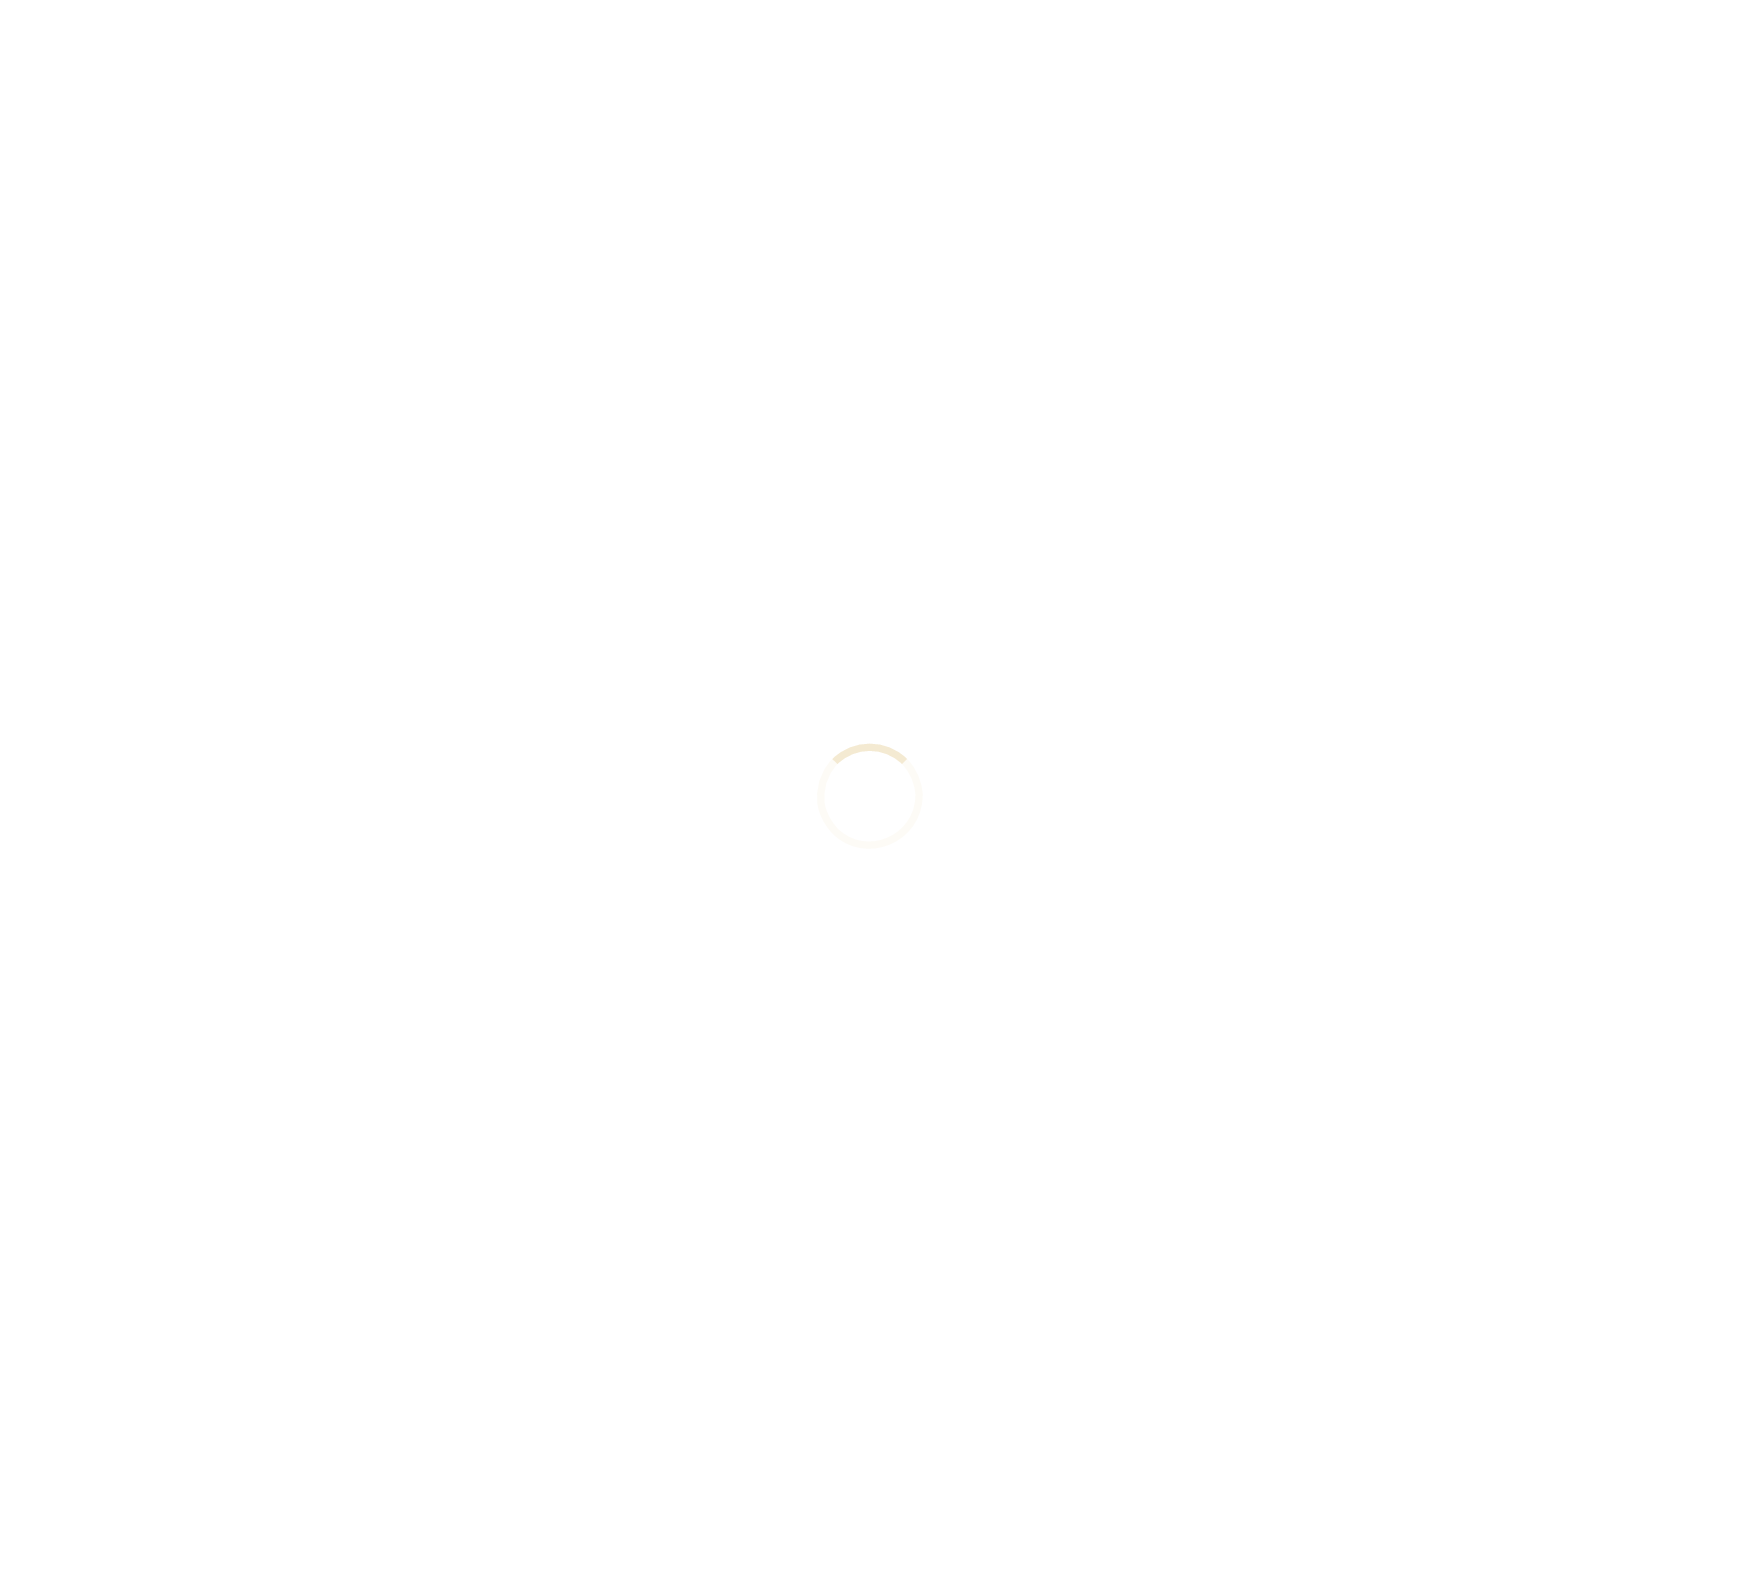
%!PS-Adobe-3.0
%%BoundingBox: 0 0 1737 1591
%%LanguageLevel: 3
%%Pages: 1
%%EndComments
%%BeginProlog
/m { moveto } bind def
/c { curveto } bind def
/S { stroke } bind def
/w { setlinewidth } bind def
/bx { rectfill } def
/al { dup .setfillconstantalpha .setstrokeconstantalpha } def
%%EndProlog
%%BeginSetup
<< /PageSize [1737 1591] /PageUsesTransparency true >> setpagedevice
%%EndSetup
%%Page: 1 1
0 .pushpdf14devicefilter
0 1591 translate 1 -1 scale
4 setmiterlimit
1 setgray
0 0 1737 1591 bx
0.957 0.918 0.824 setrgbcolor
7 w
835 761.5 m 854 742.5 885.5 742.5 904.5 761.5 c S
0.2 al
904.5 761.5 m 913.5 770.5 919 783.5 919 796 c 918.5 839.5 865.5 861.5 835 831 c 828.5 824 823.5 815.5 821.5 806 c 818.5 790 823.5 773 835 761.5 c S
.poppdf14devicefilter showpage
%%EOF
